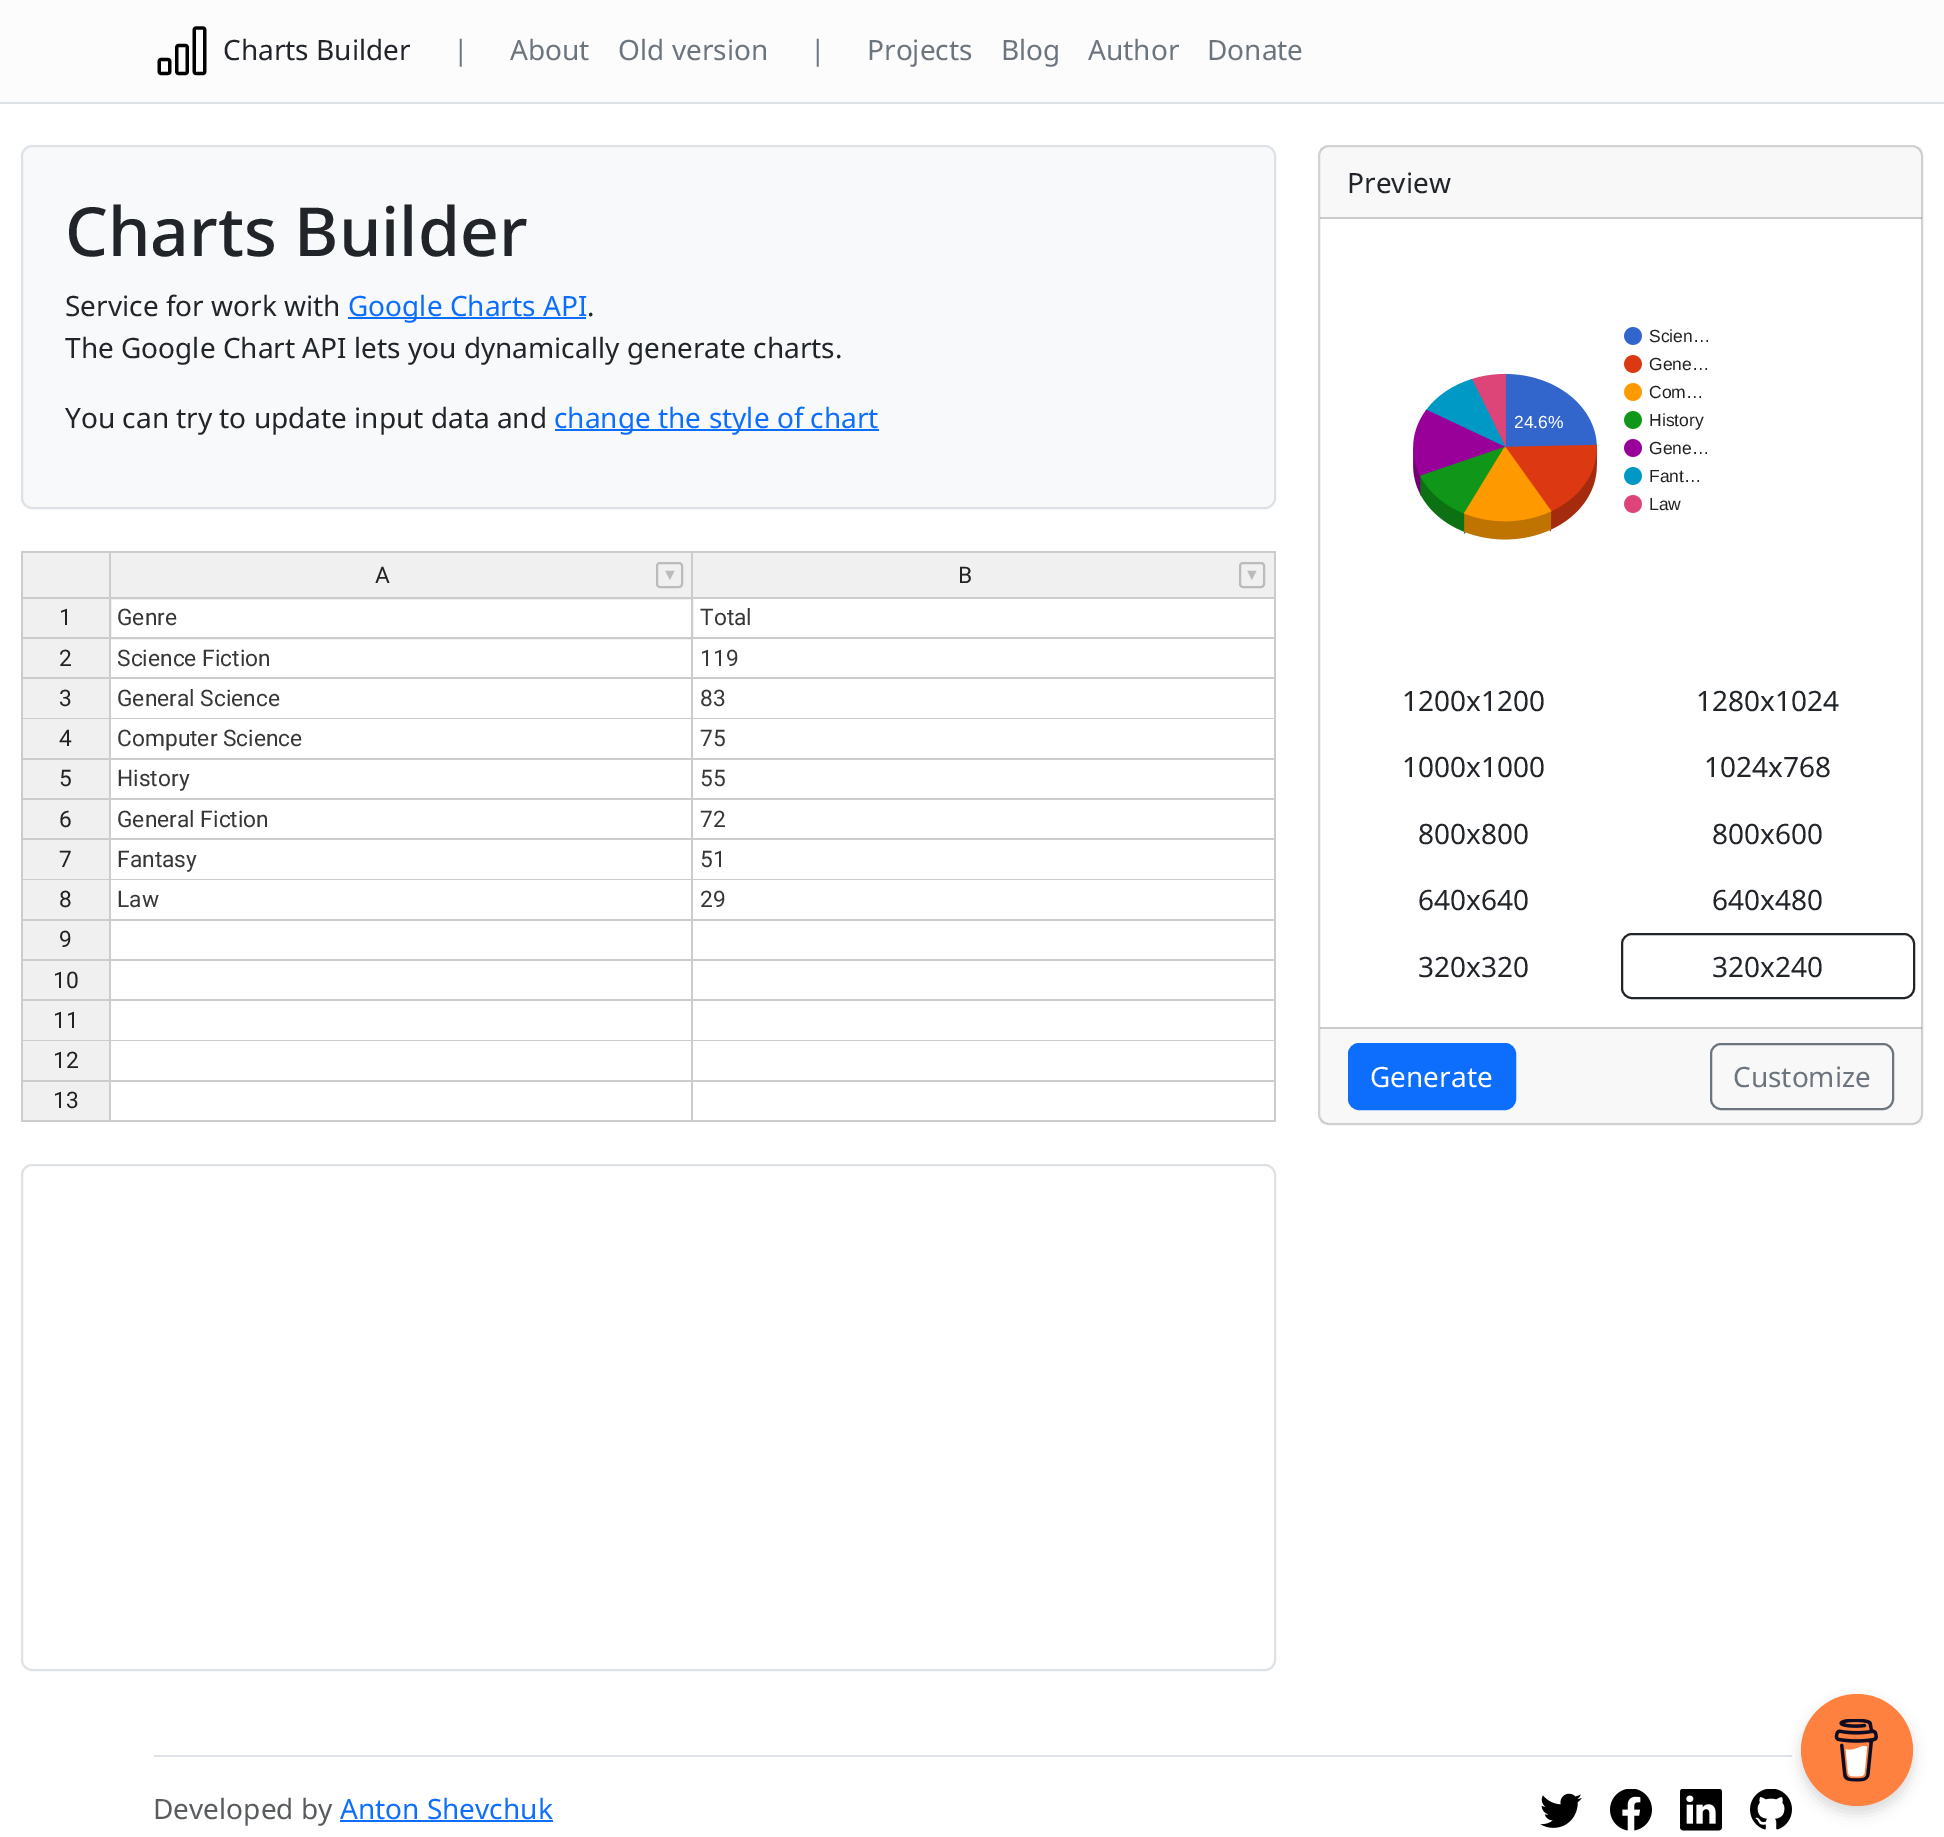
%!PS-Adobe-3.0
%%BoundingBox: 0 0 1944 1837
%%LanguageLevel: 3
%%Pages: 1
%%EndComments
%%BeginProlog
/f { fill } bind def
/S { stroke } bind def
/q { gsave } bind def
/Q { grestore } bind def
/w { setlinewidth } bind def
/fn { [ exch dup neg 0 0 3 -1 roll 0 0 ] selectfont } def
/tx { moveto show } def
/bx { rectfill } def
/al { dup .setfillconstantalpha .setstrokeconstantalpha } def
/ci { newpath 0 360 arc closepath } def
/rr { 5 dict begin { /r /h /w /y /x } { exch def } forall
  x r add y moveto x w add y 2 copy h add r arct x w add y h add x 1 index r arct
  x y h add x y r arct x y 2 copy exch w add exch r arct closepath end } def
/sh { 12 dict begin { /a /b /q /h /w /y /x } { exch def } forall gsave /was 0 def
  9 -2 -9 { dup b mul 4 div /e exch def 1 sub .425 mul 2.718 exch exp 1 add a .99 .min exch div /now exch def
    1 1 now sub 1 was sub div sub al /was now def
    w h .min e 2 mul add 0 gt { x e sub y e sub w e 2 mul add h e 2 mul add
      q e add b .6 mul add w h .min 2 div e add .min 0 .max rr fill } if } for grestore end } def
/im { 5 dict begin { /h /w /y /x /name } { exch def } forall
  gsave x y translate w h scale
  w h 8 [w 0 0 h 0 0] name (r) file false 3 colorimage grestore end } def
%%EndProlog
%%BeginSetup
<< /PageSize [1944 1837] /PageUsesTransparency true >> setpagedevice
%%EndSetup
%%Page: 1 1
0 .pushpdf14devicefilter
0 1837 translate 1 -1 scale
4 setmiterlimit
1 setgray
0 0 1944 1837 bx
0.988 0.988 0.992 setrgbcolor
0 0 1944 102 bx
0.871 0.886 0.902 setrgbcolor
0 102 1944 2 bx
(image0.raw) 157 26 50 50 im
/NotoSans-Regular 28 fn
0.129 0.145 0.161 setrgbcolor
(Charts Builder) 223 60 tx
0.424 0.459 0.49 setrgbcolor
(|) 453 60 tx
(About) 510 60 tx
(Old version) 618 60 tx
(|) 810 60 tx
(Projects) 867 60 tx
(Blog) 1001 60 tx
(Author) 1088 60 tx
(Donate) 1207 60 tx
0.973 0.976 0.98 setrgbcolor
22 146 1253 362 10 rr q f Q
0.871 0.886 0.902 setrgbcolor
2 w
S
/NotoSans-Medium 67.75 fn
0.129 0.145 0.161 setrgbcolor
(Charts Builder) 65 256 tx
/NotoSans-Regular 28 fn
(Service for work with) 65 316 tx
0.051 0.431 0.992 setrgbcolor
348 317 238 2 bx
(Google Charts API) 348 316 tx
0.129 0.145 0.161 setrgbcolor
(.) 587 316 tx
(The Google Chart API lets you dynamically generate charts.) 65 358 tx
(You can try to update input data and) 65 428 tx
0.051 0.431 0.992 setrgbcolor
555 429 324 2 bx
(change the style of chart) 554 428 tx
0.941 setgray
23 553 86 44 bx
0.8 setgray
21 551 1255 2 bx
21 551 2 46 bx
0.941 setgray
111 553 580 44 bx
0.8 setgray
691 551 2 46 bx
109 551 2 46 bx
/Roboto-Regular 22.75 fn
0.133 setgray
(A) 375 583 tx
0.733 setgray
657 563 25 24 3 rr S
/LiberationSans-Regular 16 fn
(▼) 662 580 tx
0.941 setgray
693 553 581 44 bx
0.8 setgray
1274 551 2 46 bx
/Roboto-Regular 22.75 fn
0.133 setgray
(B) 958 583 tx
0.733 setgray
1240 563 24 24 3 rr S
/LiberationSans-Regular 16 fn
(▼) 1244 580 tx
0.941 setgray
23 599 86 38 bx
0.8 setgray
21 597 88 2 bx
21 637 88 2 bx
693 597 583 2 bx
1274 597 2 525 bx
691 639 2 483 bx
21 677 1255 2 bx
21 718 1255 1 bx
21 758 1255 2 bx
21 798 1255 2 bx
21 838 1255 2 bx
21 879 1255 1 bx
21 919 1255 2 bx
21 959 1255 2 bx
21 999 1255 2 bx
21 1040 1255 1 bx
21 1080 1255 2 bx
21 1120 1255 2 bx
21 597 2 525 bx
/Roboto-Regular 22.75 fn
0.133 setgray
(1) 59 625 tx
0.941 setgray
23 639 86 38 bx
0.133 setgray
(2) 59 666 tx
0.941 setgray
23 679 86 39 bx
0.133 setgray
(3) 59 706 tx
0.941 setgray
23 719 86 39 bx
0.133 setgray
(4) 59 746 tx
0.941 setgray
23 760 86 38 bx
0.133 setgray
(5) 59 786 tx
0.941 setgray
23 800 86 38 bx
0.133 setgray
(6) 59 827 tx
0.941 setgray
23 840 86 39 bx
0.133 setgray
(7) 59 867 tx
0.941 setgray
23 880 86 39 bx
0.133 setgray
(8) 59 907 tx
0.941 setgray
23 921 86 38 bx
0.133 setgray
(9) 59 947 tx
0.941 setgray
23 961 86 38 bx
0.133 setgray
(10) 53 988 tx
0.941 setgray
23 1001 86 39 bx
0.133 setgray
(11) 53 1028 tx
0.941 setgray
23 1041 86 39 bx
0.133 setgray
(12) 53 1068 tx
0.941 setgray
23 1082 86 38 bx
0.133 setgray
(13) 53 1108 tx
0.8 setgray
110 598 582 40 rectstroke
0.216 setgray
(Genre) 117 625 tx
0.8 setgray
693 637 583 2 bx
0.216 setgray
(Total) 700 625 tx
0.8 setgray
109 639 2 40 bx
0.216 setgray
(Science Fiction) 117 666 tx
(119) 700 666 tx
0.8 setgray
109 679 2 40 bx
0.216 setgray
(General Science) 117 706 tx
(83) 700 706 tx
0.8 setgray
109 719 2 41 bx
0.216 setgray
(Computer Science) 117 746 tx
(75) 700 746 tx
0.8 setgray
109 760 2 40 bx
0.216 setgray
(History) 117 786 tx
(55) 700 786 tx
0.8 setgray
109 800 2 40 bx
0.216 setgray
(General Fiction) 117 827 tx
(72) 700 827 tx
0.8 setgray
109 840 2 40 bx
0.216 setgray
(Fantasy) 117 867 tx
(51) 700 867 tx
0.8 setgray
109 880 2 41 bx
0.216 setgray
(Law) 117 907 tx
(29) 700 907 tx
0.8 setgray
109 921 2 40 bx
109 961 2 40 bx
109 1001 2 40 bx
109 1041 2 41 bx
109 1082 2 40 bx
0.871 0.886 0.902 setrgbcolor
22 1165 1253 505 10 rr S
0.824 setgray
1319 146 603 978 10 rr S
0.03 al
0.129 0.145 0.161 setrgbcolor
1320 147 602 72 bx
0.18 al
0 setgray
1320 217 602 2 bx
/NotoSans-Regular 28 fn
1 al
0.129 0.145 0.161 setrgbcolor
(Preview) 1347 193 tx
(image1.raw) 1413 327 229 213 im
/LiberationSans-Regular 17.5 fn
0.133 setgray
(Scien…) 1649 342 tx
(Gene…) 1649 370 tx
(Com…) 1649 398 tx
1 setgray
(24.6%) 1514 428 tx
0.133 setgray
(History) 1649 426 tx
(Gene…) 1649 454 tx
(Fant…) 1649 482 tx
(Law) 1649 510 tx
/NotoSans-Regular 28 fn
0.129 0.145 0.161 setrgbcolor
(1200x1200) 1402 711 tx
(1280x1024) 1696 711 tx
(1000x1000) 1402 777 tx
(1024x768) 1704 777 tx
(800x800) 1418 844 tx
(800x600) 1712 844 tx
(640x640) 1418 910 tx
(640x480) 1712 910 tx
(320x320) 1418 977 tx
1622 934 292 64 10 rr S
(320x240) 1712 977 tx
0.03 al
1320 1027 602 97 bx
0.18 al
0 setgray
1320 1027 602 2 bx
1 al
0.051 0.431 0.992 setrgbcolor
1349 1044 166 65 10 rr q f Q
S
1 setgray
(Generate) 1370 1087 tx
0.424 0.459 0.49 setrgbcolor
1711 1044 182 65 10 rr S
(Customize) 1733 1087 tx
0.871 0.886 0.902 setrgbcolor
154 1755 1638 2 bx
0.349 0.361 0.373 setrgbcolor
(Developed by) 153 1819 tx
0.051 0.431 0.992 setrgbcolor
(Anton Shevchuk) 340 1819 tx
340 1820 213 2 bx
(image2.raw) 1540 1793 42 35 im
(image3.raw) 1610 1789 42 42 im
(image4.raw) 1680 1789 42 42 im
(image5.raw) 1750 1789 42 41 im
0 setgray
1801 1701 112 112 56 7 0.15 sh
1 0.506 0.247 setrgbcolor
1857 1750 56 ci f
(image6.raw) 1834 1719 44 63 im
.poppdf14devicefilter showpage
%%EOF
